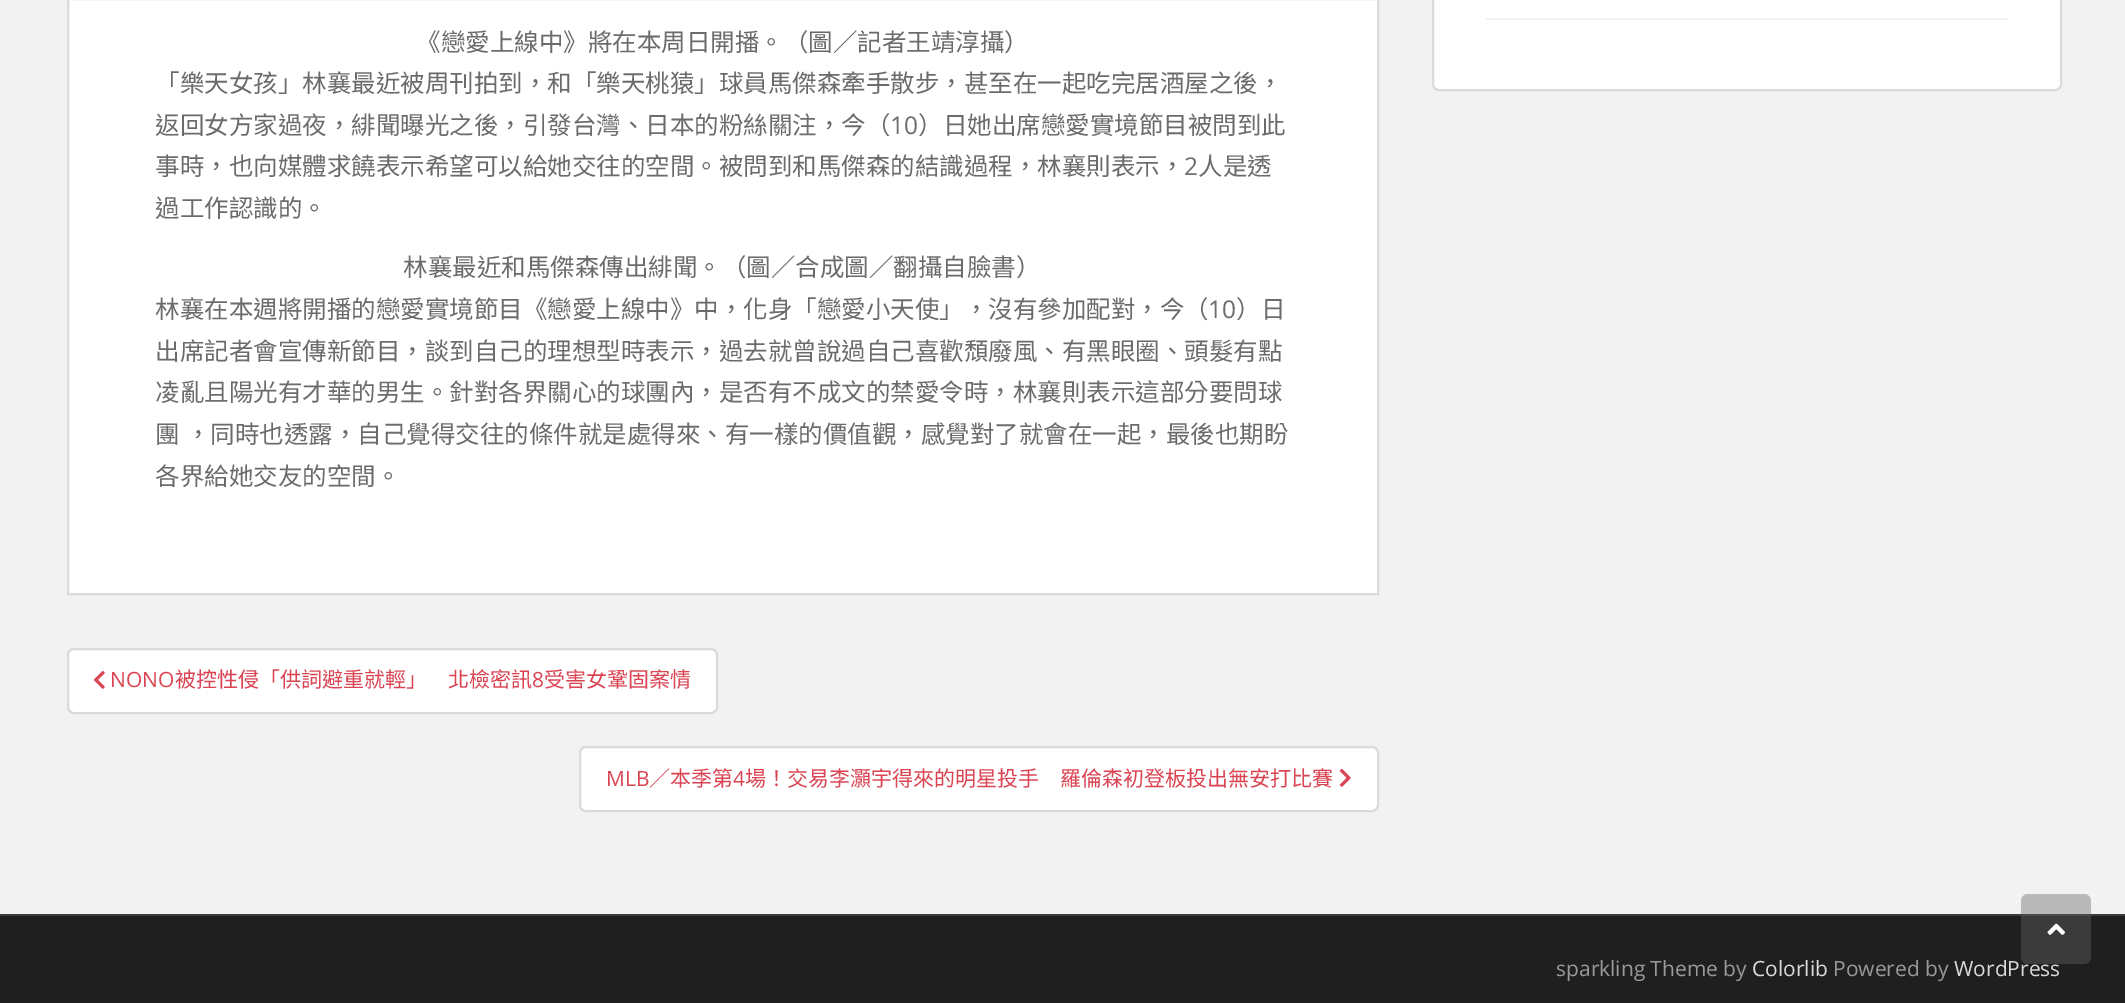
%!PS-Adobe-3.0
%%BoundingBox: 0 0 2125 1003
%%LanguageLevel: 3
%%Pages: 1
%%EndComments
%%BeginProlog
/m { moveto } bind def
/l { lineto } bind def
/h { closepath } bind def
/f { fill } bind def
/S { stroke } bind def
/q { gsave } bind def
/Q { grestore } bind def
/w { setlinewidth } bind def
/fn { [ exch dup neg 0 0 3 -1 roll 0 0 ] selectfont } def
/tx { moveto show } def
/bx { rectfill } def
/al { dup .setfillconstantalpha .setstrokeconstantalpha } def
/rr { 5 dict begin { /r /h /w /y /x } { exch def } forall
  x r add y moveto x w add y 2 copy h add r arct x w add y h add x 1 index r arct
  x y h add x y r arct x y 2 copy exch w add exch r arct closepath end } def
/im { 5 dict begin { /h /w /y /x /name } { exch def } forall
  gsave x y translate w h scale
  w h 8 [w 0 0 h 0 0] name (r) file false 3 colorimage grestore end } def
%%EndProlog
%%BeginSetup
<< /PageSize [2125 1003] /PageUsesTransparency true >> setpagedevice
%%EndSetup
%%Page: 1 1
0 .pushpdf14devicefilter
0 1003 translate 1 -1 scale
4 setmiterlimit
0.949 setgray
0 0 2125 1003 bx
1 setgray
68 -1 m 1378 -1 l 1378 594 l 68 594 l h q f Q
0.855 setgray
2 w
S
/NotoSansCJKTC-Regular 24.5 fn
0.42 setgray
(《戀愛上線中》將在本周日開播。（圖／記者王靖淳攝）) 416 51 tx
(「樂天女孩」林襄最近被周刊拍到，和「樂天桃猿」球員馬傑森牽手散步，甚至在一起吃完居酒屋之後，) 155 92 tx
(返回女方家過夜，緋聞曝光之後，引發台灣、日本的粉絲關注，今（) 155 134 tx
/OpenSans-Regular 24.5 fn
(10) 890 134 tx
/NotoSansCJKTC-Regular 24.5 fn
(）日她出席戀愛實境節目被問到此) 918 134 tx
(事時，也向媒體求饒表示希望可以給她交往的空間。被問到和馬傑森的結識過程，林襄則表示，) 155 175 tx
/OpenSans-Regular 24.5 fn
(2) 1184 175 tx
/NotoSansCJKTC-Regular 24.5 fn
(人是透) 1198 175 tx
(過工作認識的。) 155 217 tx
(林襄最近和馬傑森傳出緋聞。（圖／合成圖／翻攝自臉書）) 403 276 tx
(林襄在本週將開播的戀愛實境節目《戀愛上線中》中，化身「戀愛小天使」，沒有參加配對，今（) 155 318 tx
/OpenSans-Regular 24.5 fn
(10) 1208 318 tx
/NotoSansCJKTC-Regular 24.5 fn
(）日) 1236 318 tx
(出席記者會宣傳新節目，談到自己的理想型時表示，過去就曾說過自己喜歡頹廢風、有黑眼圈、頭髮有點) 155 360 tx
(凌亂且陽光有才華的男生。針對各界關心的球團內，是否有不成文的禁愛令時，林襄則表示這部分要問球) 155 401 tx
155 443 m 1 0 32 (團 ，同時也透露，自己覺得交往的條件就是處得來、有一樣的價值觀，感覺對了就會在一起，最後也期盼) widthshow
(各界給她交友的空間。) 155 485 tx
1 setgray
68 649 649 64 6 rr q f Q
0.855 setgray
S
(image0.raw) 93 670 12 19 im
/OpenSans-Regular 21 fn
0.855 0.267 0.325 setrgbcolor
(NONO) 110 687 tx
/NotoSansCJKTC-Regular 21 fn
(被控性侵「供詞避重就輕」　北檢密訊) 175 687 tx
/OpenSans-Regular 21 fn
(8) 532 687 tx
/NotoSansCJKTC-Regular 21 fn
(受害女鞏固案情) 544 687 tx
1 setgray
580 747 798 64 6 rr q f Q
0.855 setgray
S
/OpenSans-Regular 21 fn
0.855 0.267 0.325 setrgbcolor
(MLB) 606 786 tx
/NotoSansCJKTC-Regular 21 fn
(／本季第) 649 786 tx
/OpenSans-Regular 21 fn
(4) 733 786 tx
/NotoSansCJKTC-Regular 21 fn
(場！交易李灝宇得來的明星投手　羅倫森初登板投出無安打比賽) 745 786 tx
(image1.raw) 1339 768 12 19 im
1 setgray
1433 -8 628 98 6 rr q f Q
0.855 setgray
S
0.949 setgray
1486 18 521 2 bx
0.122 setgray
0 916 2125 87 bx
0.227 setgray
0 914 2125 2 bx
/OpenSans-Regular 21 fn
0.855 setgray
(WordPress) 1954 976 tx
0.4 al
0.392 setgray
2021 894 70 70 7 rr f
1 al
(image2.raw) 2047 923 18 12 im
0.6 setgray
(sparkling Theme by) 1556 976 tx
0.855 setgray
(Colorlib) 1752 976 tx
0.6 setgray
(Powered by) 1833 976 tx
.poppdf14devicefilter showpage
%%EOF
